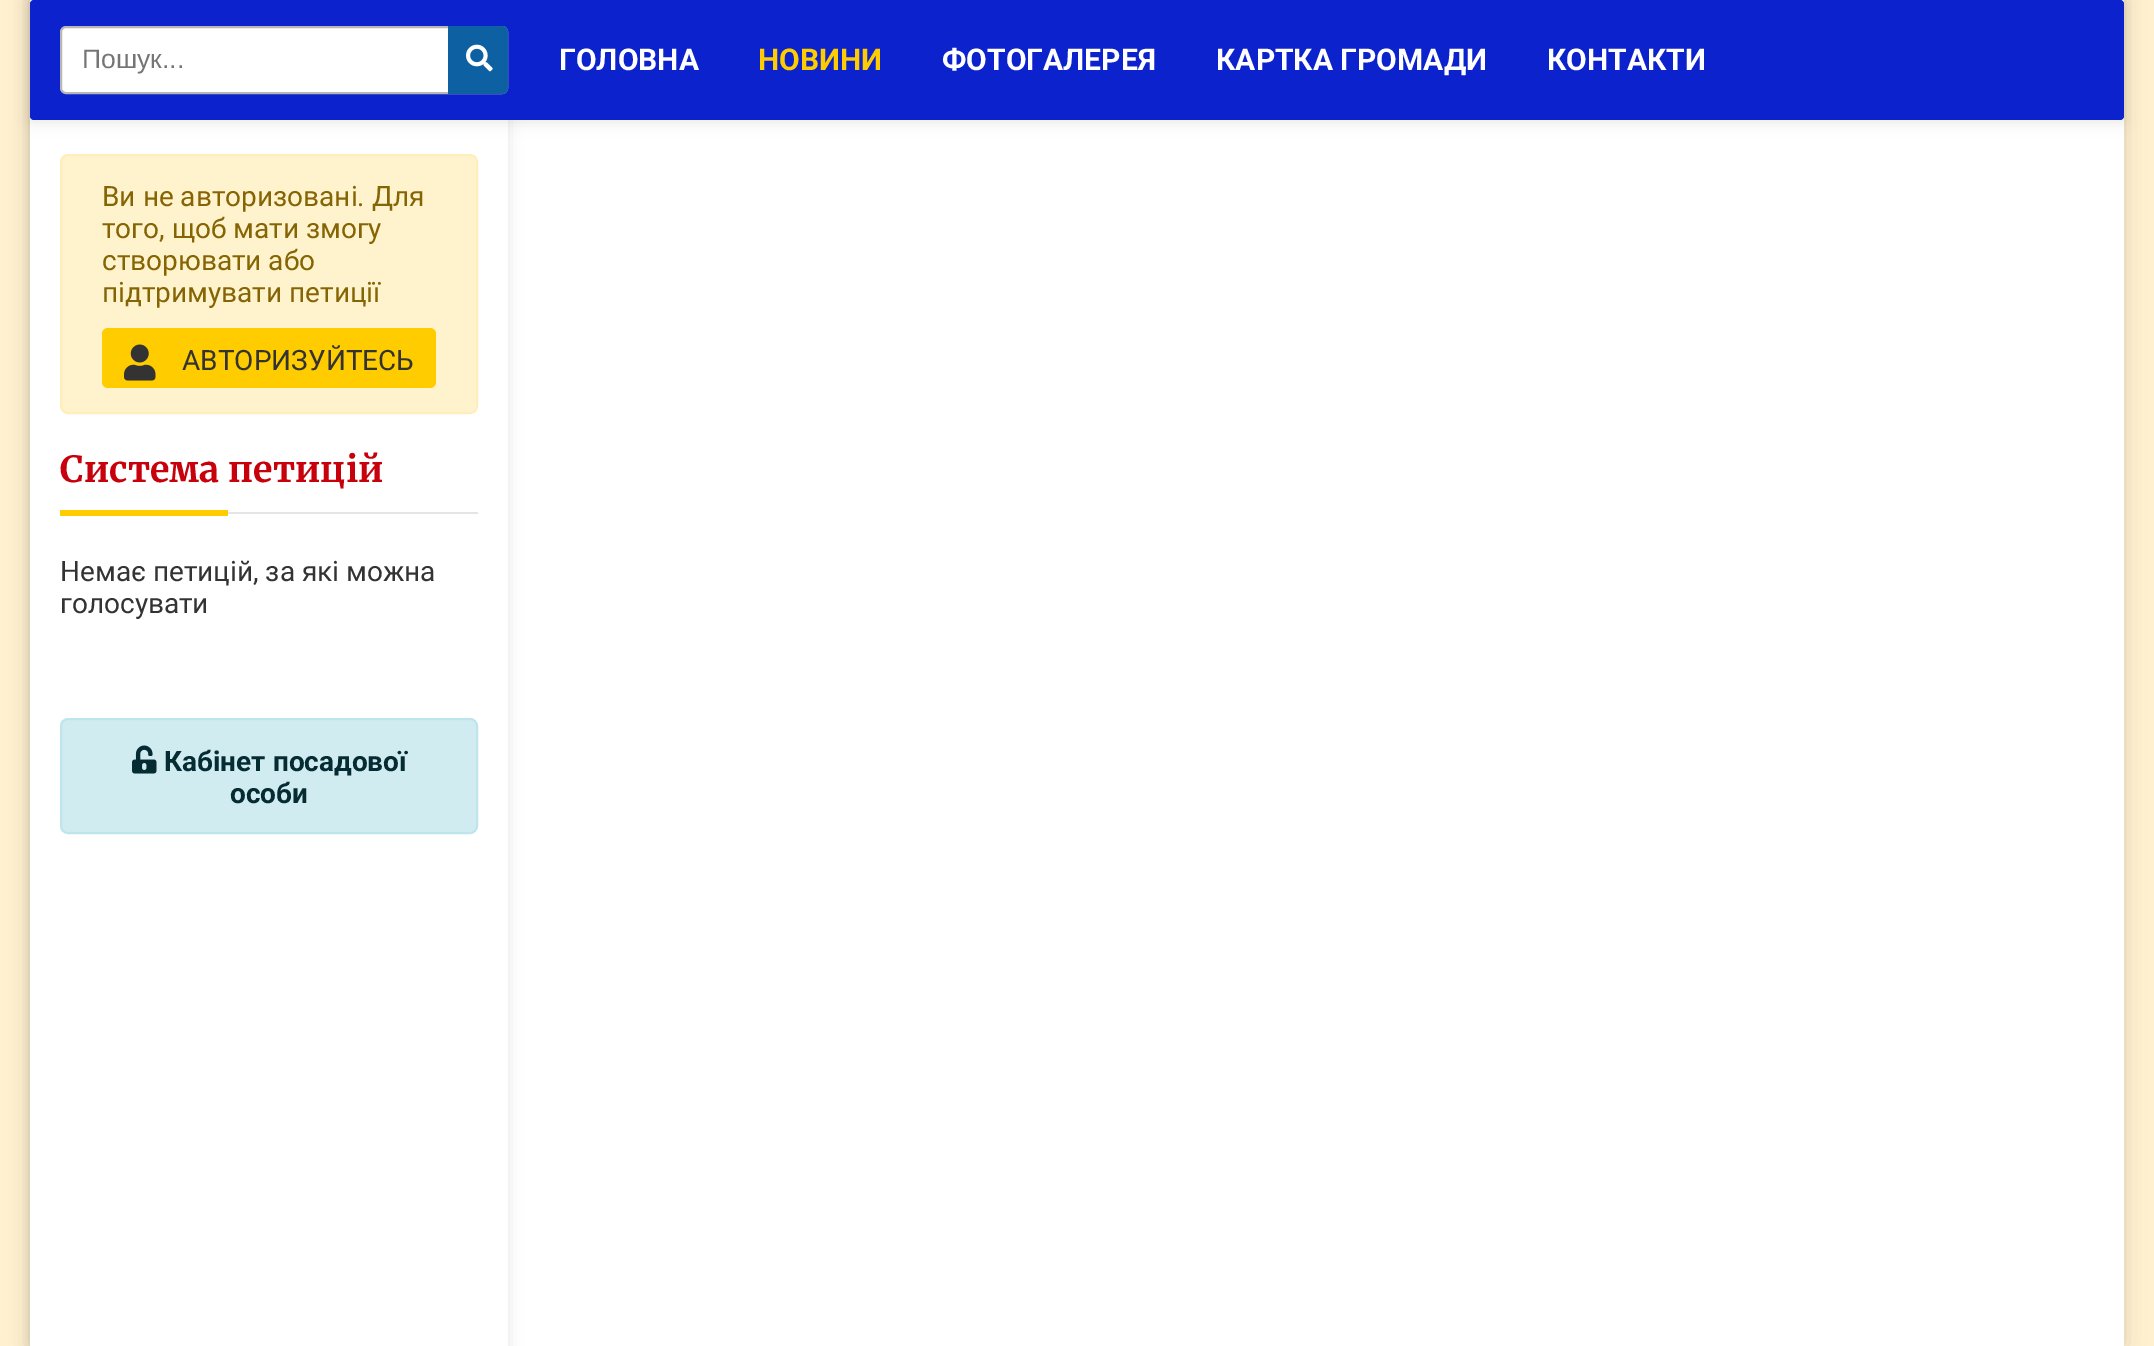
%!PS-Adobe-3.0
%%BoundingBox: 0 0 2154 1346
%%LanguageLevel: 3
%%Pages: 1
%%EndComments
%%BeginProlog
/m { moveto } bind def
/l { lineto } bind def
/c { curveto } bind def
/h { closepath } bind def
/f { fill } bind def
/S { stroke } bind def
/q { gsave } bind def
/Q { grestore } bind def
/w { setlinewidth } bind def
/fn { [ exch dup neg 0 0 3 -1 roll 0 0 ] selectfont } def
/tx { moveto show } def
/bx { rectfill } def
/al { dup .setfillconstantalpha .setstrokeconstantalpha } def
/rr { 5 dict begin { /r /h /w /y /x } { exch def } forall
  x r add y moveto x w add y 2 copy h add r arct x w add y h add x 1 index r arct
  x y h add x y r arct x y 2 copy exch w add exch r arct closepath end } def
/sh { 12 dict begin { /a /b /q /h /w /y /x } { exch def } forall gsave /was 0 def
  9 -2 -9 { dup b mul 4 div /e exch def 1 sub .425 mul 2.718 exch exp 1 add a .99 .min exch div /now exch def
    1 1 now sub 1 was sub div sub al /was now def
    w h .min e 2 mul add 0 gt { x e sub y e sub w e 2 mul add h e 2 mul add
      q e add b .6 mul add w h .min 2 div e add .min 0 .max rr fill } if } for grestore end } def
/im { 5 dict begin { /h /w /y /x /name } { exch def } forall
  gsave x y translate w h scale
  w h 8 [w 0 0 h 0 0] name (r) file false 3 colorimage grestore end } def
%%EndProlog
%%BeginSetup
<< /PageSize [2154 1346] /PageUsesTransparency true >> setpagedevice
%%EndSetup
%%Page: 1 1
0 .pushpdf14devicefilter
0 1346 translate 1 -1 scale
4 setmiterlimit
1 setgray
0 0 2154 1346 bx
q 0 0 m 2154 0 l 2154 1346 l 0 1346 l h clip newpath
<< /ShadingType 2 /ColorSpace /DeviceRGB /Coords [1077 -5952 1077 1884] /Extend [true true] /Function << /FunctionType 3 /Domain [0 1] /Functions [<< /FunctionType 2 /Domain [0 1] /C0 [1 1 1] /C1 [1 1 1] /N 1 >> << /FunctionType 2 /Domain [0 1] /C0 [1 1 1] /C1 [1 0.945 0.816] /N 1 >> << /FunctionType 2 /Domain [0 1] /C0 [1 0.945 0.816] /C1 [1 0.945 0.816] /N 1 >>] /Bounds [0.1 0.2] /Encode [0 1 0 1 0 1] >> >> shfill Q
0 setgray
30 -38 2094 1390 8 10 0.15 sh
1 setgray
30 -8 2094 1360 8 rr f
0 setgray
30 2 2094 120 4 7 0.1 sh
q
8 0 m 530 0 l 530 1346 l 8 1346 l h 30 -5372 m 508 -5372 l 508 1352 l 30 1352 l h eoclip newpath
30 -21 478 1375 0 7 0.1 sh
Q
0.047 0.133 0.8 setrgbcolor
30 0 2094 120 4 rr f
/Roboto-Bold 30 fn
1 setgray
(ГОЛОВНА) 559 70 tx
1 0.8 0 setrgbcolor
(НОВИНИ) 758 70 tx
1 setgray
(ФОТОГАЛЕРЕЯ) 942 70 tx
(КАРТКА ГРОМАДИ) 1216 70 tx
(КОНТАКТИ) 1547 70 tx
1 0.953 0.804 setrgbcolor
61 155 416 258 7 rr q f Q
1 0.933 0.729 setrgbcolor
2 w
S
/Roboto-Regular 28 fn
0.522 0.392 0.016 setrgbcolor
(Ви не авторизовані. Для) 102 206 tx
(того, щоб мати змогу) 102 238 tx
(створювати або) 102 270 tx
(підтримувати петиції) 102 302 tx
1 0.8 0 setrgbcolor
102 328 334 60 6 rr f
(image0.raw) 124 344 32 37 im
0.2 setgray
(АВТОРИЗУЙТЕСЬ) 182 370 tx
0.898 setgray
228 512 250 2 bx
/Merriweather-Light 36 fn
0.78 0 0.047 setrgbcolor
(Система петицій) 60 482 tx
1 0.8 0 setrgbcolor
60 510 168 6 bx
/Roboto-Regular 28 fn
0.2 setgray
(Немає петицій, за які можна) 60 581 tx
(голосувати) 60 613 tx
0.82 0.925 0.945 setrgbcolor
61 719 416 114 7 rr q f Q
0.745 0.898 0.922 setrgbcolor
S
(image1.raw) 132 745 25 29 im
/Roboto-Bold 28 fn
0.024 0.173 0.2 setrgbcolor
(Кабінет посадової) 164 771 tx
(особи) 230 803 tx
1 setgray
61 27 446 66 5 rr q f Q
0.718 setgray
S
/LiberationSans-Regular 26.5 fn
0.459 setgray
(Пошук...) 82 68 tx
0.051 0.38 0.635 setrgbcolor
448 26 m 502 26 l 505.5 26 508 28.5 508 32 c 508 88 l 508 91.5 505.5 94 502 94 c 448 94 l h f
(image2.raw) 466 44 27 28 im
.poppdf14devicefilter showpage
%%EOF
